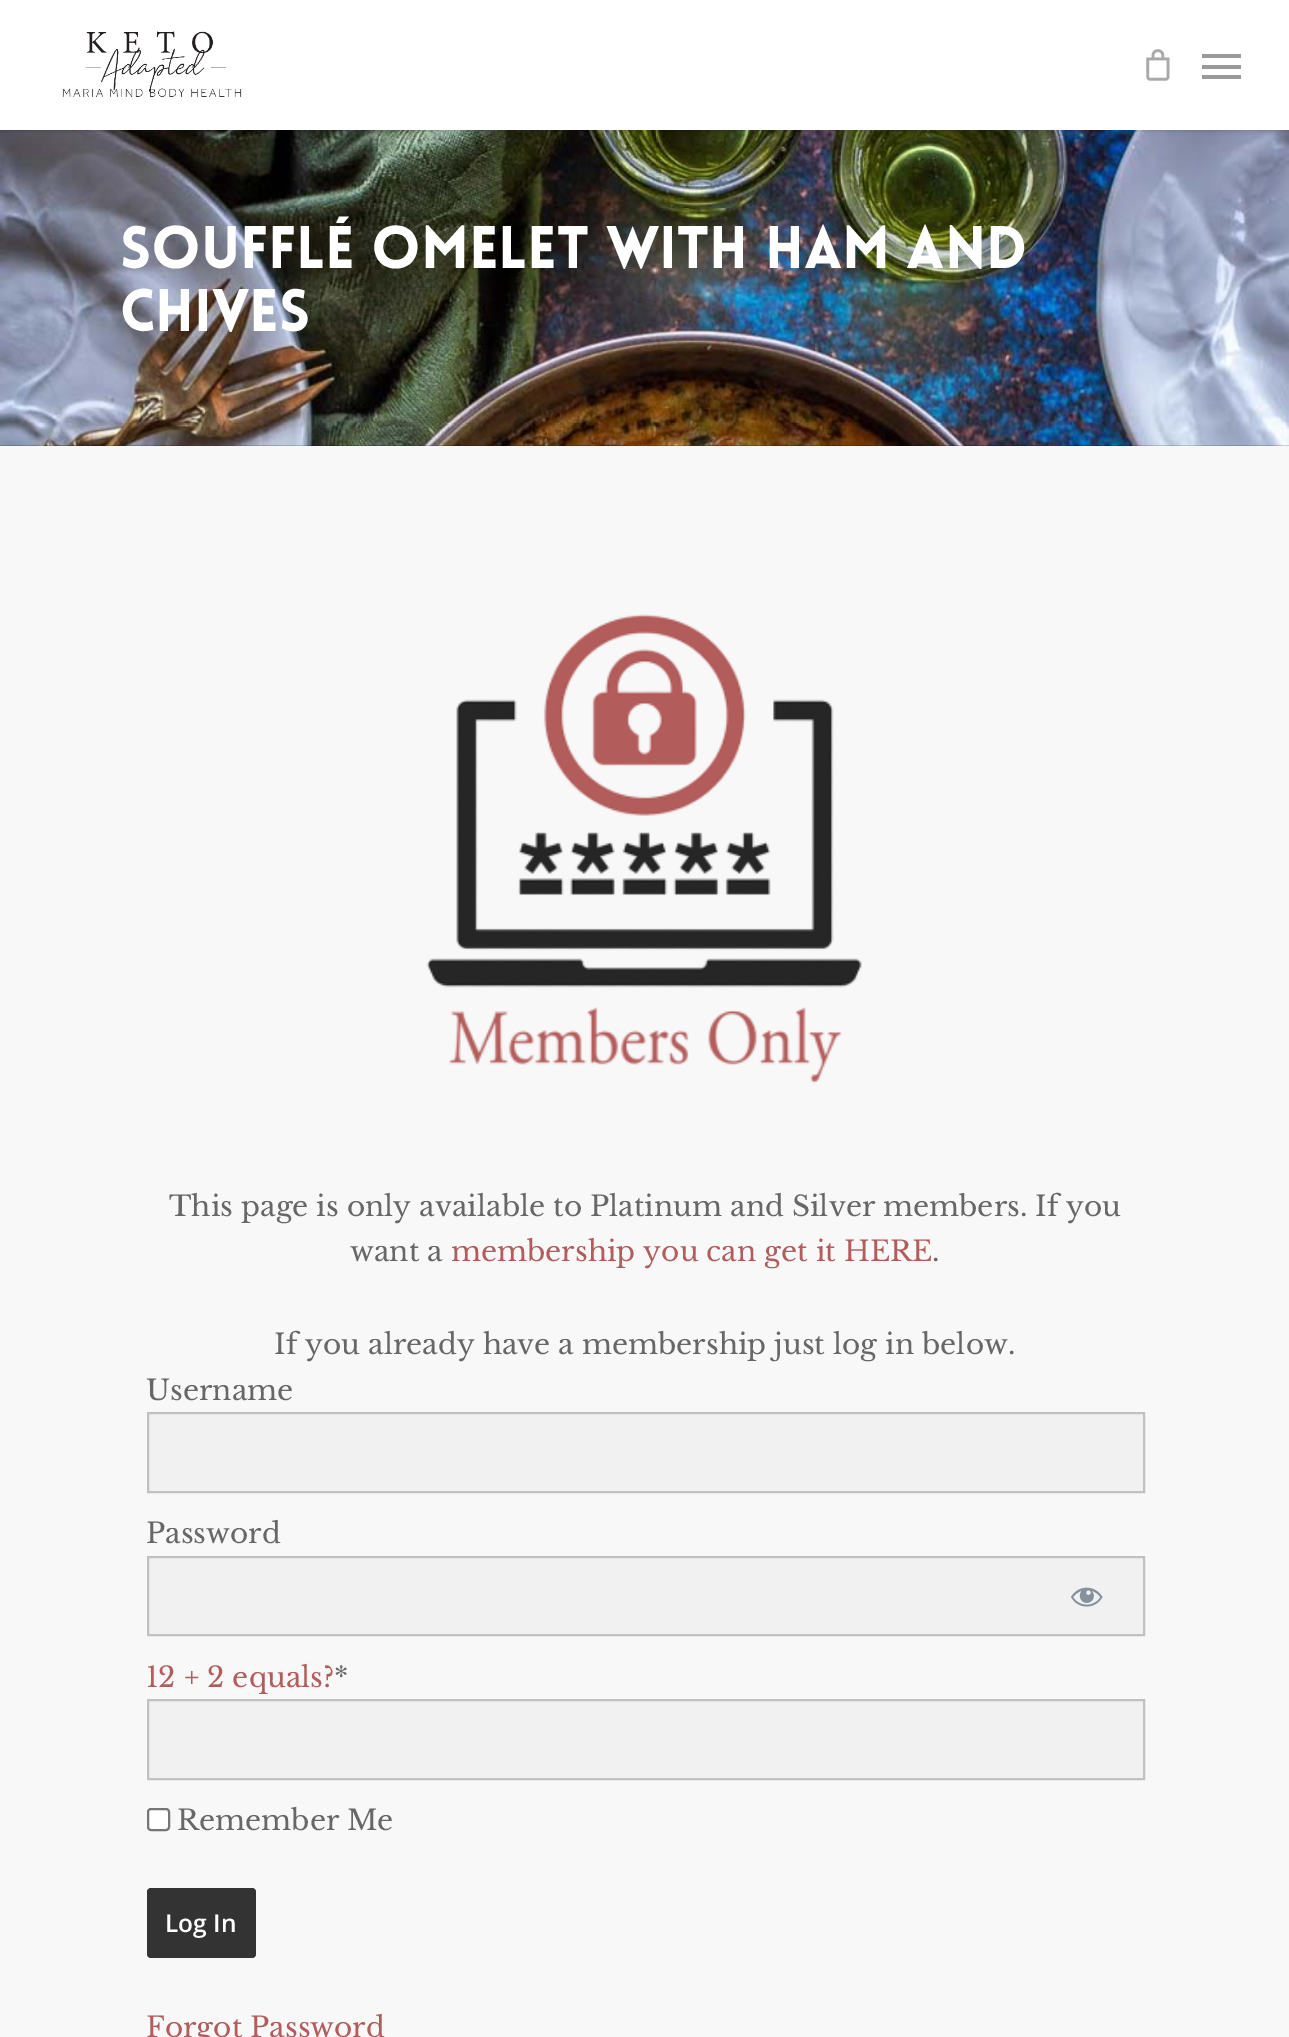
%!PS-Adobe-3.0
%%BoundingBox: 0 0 1289 2037
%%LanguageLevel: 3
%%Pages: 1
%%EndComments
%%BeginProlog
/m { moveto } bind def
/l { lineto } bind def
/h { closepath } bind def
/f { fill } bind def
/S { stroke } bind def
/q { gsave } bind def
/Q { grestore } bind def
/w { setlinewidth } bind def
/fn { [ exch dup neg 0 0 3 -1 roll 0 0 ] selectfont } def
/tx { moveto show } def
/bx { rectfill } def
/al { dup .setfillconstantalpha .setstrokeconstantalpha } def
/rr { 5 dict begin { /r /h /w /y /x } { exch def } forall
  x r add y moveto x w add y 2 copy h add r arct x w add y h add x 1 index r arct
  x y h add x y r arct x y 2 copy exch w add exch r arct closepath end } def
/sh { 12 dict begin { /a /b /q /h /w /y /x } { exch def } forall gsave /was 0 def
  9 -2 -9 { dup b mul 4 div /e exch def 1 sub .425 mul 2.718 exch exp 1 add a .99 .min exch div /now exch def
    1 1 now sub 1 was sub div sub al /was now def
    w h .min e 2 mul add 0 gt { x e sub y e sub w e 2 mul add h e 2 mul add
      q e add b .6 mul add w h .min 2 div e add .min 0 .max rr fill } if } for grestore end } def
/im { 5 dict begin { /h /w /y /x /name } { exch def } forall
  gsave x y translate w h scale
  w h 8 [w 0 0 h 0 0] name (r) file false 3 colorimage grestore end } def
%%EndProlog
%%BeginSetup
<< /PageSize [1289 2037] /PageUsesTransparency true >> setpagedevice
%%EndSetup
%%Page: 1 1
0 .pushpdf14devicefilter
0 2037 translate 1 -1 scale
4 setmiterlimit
1 setgray
0 0 1289 2037 bx
(image2.raw) 0 130 1289 316 im
0 setgray
0 0 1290 130 0 2.5 0.22 sh
1 setgray
0 0 1289 130 bx
(image0.raw) 62 31 180 66 im
(image1.raw) 1146 49 24 32 im
0.6 setgray
1202 54 39 4 bx
1202 75 39 4 bx
1202 65 39 4 bx
/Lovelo-Black 58.75 fn
1 setgray
(Soufflé Omelet with Ham and) 120 268 tx
(Chives) 120 331 tx
0.973 setgray
0 446 1289 1591 bx
(image3.raw) 426 614 436 470 im
/LibreBaskerville-Regular 28 fn
0.404 setgray
(This page is only available to Platinum and Silver members. If you) 169 1216 tx
(want a) 350 1261 tx
0.698 0.361 0.357 setrgbcolor
(membership you can get it HERE) 451 1261 tx
0.404 setgray
(.) 932 1261 tx
(If you already have a membership just log in below.) 274 1354 tx
(Username) 146 1400 tx
0.945 setgray
148 1413 m 1144 1413 l 1144 1492 l 148 1492 l h q f Q
0.757 setgray
2 w
S
0.404 setgray
(Password) 146 1543 tx
0.945 setgray
148 1557 m 1144 1557 l 1144 1635 l 148 1635 l h q f Q
0.757 setgray
S
(image4.raw) 1071 1587 32 20 im
0.698 0.361 0.357 setrgbcolor
(12 + 2 equals?) 146 1687 tx
0.404 setgray
(*) 334 1687 tx
0.945 setgray
148 1700 m 1144 1700 l 1144 1779 l 148 1779 l h q f Q
0.757 setgray
S
1 setgray
148 1809 21 21 3 rr q f Q
0.463 setgray
S
0.404 setgray
(Remember Me) 177 1830 tx
0.2 setgray
147 1888 109 70 4 rr f
/OpenSans-SemiBold 24.5 fn
1 setgray
(Log In) 165 1932 tx
/LibreBaskerville-Regular 28 fn
0.698 0.361 0.357 setrgbcolor
(Forgot Password) 146 2037 tx
.poppdf14devicefilter showpage
%%EOF
